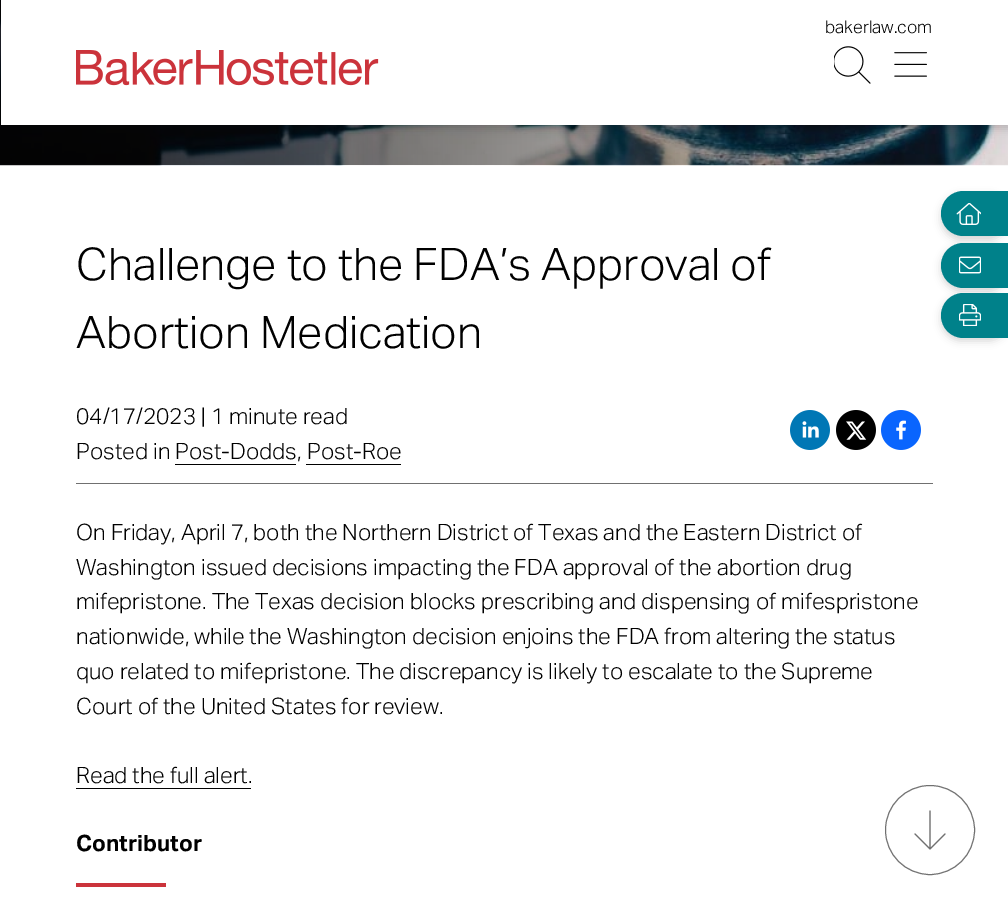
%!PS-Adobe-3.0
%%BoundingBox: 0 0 1008 919
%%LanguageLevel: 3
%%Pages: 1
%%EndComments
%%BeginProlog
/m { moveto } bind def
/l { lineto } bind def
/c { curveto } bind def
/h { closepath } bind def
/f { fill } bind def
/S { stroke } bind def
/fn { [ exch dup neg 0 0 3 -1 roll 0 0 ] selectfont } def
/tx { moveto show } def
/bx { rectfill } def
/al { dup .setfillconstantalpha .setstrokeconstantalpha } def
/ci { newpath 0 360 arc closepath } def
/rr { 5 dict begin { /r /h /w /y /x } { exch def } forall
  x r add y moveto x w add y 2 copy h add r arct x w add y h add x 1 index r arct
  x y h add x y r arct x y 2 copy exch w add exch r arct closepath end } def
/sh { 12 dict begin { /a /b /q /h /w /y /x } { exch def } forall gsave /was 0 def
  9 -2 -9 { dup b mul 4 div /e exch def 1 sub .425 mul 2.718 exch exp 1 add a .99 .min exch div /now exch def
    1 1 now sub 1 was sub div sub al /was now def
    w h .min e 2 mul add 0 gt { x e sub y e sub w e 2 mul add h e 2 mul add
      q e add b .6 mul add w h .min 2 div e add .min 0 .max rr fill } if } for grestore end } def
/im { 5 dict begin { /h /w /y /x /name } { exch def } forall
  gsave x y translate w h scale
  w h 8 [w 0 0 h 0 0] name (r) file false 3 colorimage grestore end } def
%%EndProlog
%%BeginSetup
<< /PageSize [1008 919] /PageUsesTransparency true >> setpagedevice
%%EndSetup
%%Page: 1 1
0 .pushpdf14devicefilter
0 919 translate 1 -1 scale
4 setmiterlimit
1 setgray
0 0 1008 919 bx
(image3.raw) 0 0 1008 166 im
0 setgray
1 4 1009 125 0 4 0.16 sh
1 setgray
1 0 1007 125 bx
/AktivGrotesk-Light 17.5 fn
0 setgray
(bakerlaw.com) 825 33 tx
(image0.raw) 834 46 37 38 im
(image1.raw) 894 52 33 25 im
(image2.raw) 76 50 303 36 im
/AktivGrotesk-Light 45 fn
(Challenge to the FDA’s Approval of) 76 280 tx
(Abortion Medication) 76 348 tx
0.439 setgray
76 483 857 1 bx
/AktivGrotesk-Light 22.5 fn
0 setgray
(04/17/2023 | 1 minute read) 76 424 tx
(Posted in Post-Dodds,) 76 459 tx
(Post-Roe) 307 459 tx
306 464 95 1 bx
175 464 121 1 bx
(image4.raw) 790 410 40 40 im
(image5.raw) 836 410 40 40 im
(image6.raw) 881 410 40 40 im
(On Friday, April 7, both the Northern District of Texas and the Eastern District of) 76 540 tx
(Washington issued decisions impacting the FDA approval of the abortion drug) 76 575 tx
(mifepristone. The Texas decision blocks prescribing and dispensing of mifespristone) 76 609 tx
(nationwide, while the Washington decision enjoins the FDA from altering the status) 76 644 tx
(quo related to mifepristone. The discrepancy is likely to escalate to the Supreme) 76 679 tx
(Court of the United States for review.) 76 714 tx
(Read the full alert.) 76 783 tx
76 788 175 1 bx
/AktivGrotesk-Bold 22.5 fn
(Contributor) 76 851 tx
0.796 0.2 0.231 setrgbcolor
76 883 90 4 bx
0 setgray
941 195 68 45 22.5 4 0.16 sh
0 0.506 0.541 setrgbcolor
963.5 191 m 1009 191 l 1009 236 l 963.5 236 l 951 236 941 226 941 213.5 c 941 201 951 191 963.5 191 c h f
(image7.raw) 956 203 25 22 im
0 setgray
941 246 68 45 22.5 4 0.16 sh
0 0.506 0.541 setrgbcolor
963.5 243 m 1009 243 l 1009 288 l 963.5 288 l 951 288 941 278 941 265.5 c 941 253 951 243 963.5 243 c h f
(image8.raw) 959 256 22 18 im
0 setgray
941 296 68 45 22.5 4 0.16 sh
0 0.506 0.541 setrgbcolor
963.5 293 m 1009 293 l 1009 338 l 963.5 338 l 951 338 941 328 941 315.5 c 941 303 951 293 963.5 293 c h f
(image9.raw) 959 304 22 22 im
0.439 setgray
930 830 44.5 ci S
0.1 al
1 setgray
930 830 44 ci f
1 al
(image10.raw) 914 810 32 40 im
.poppdf14devicefilter showpage
%%EOF
